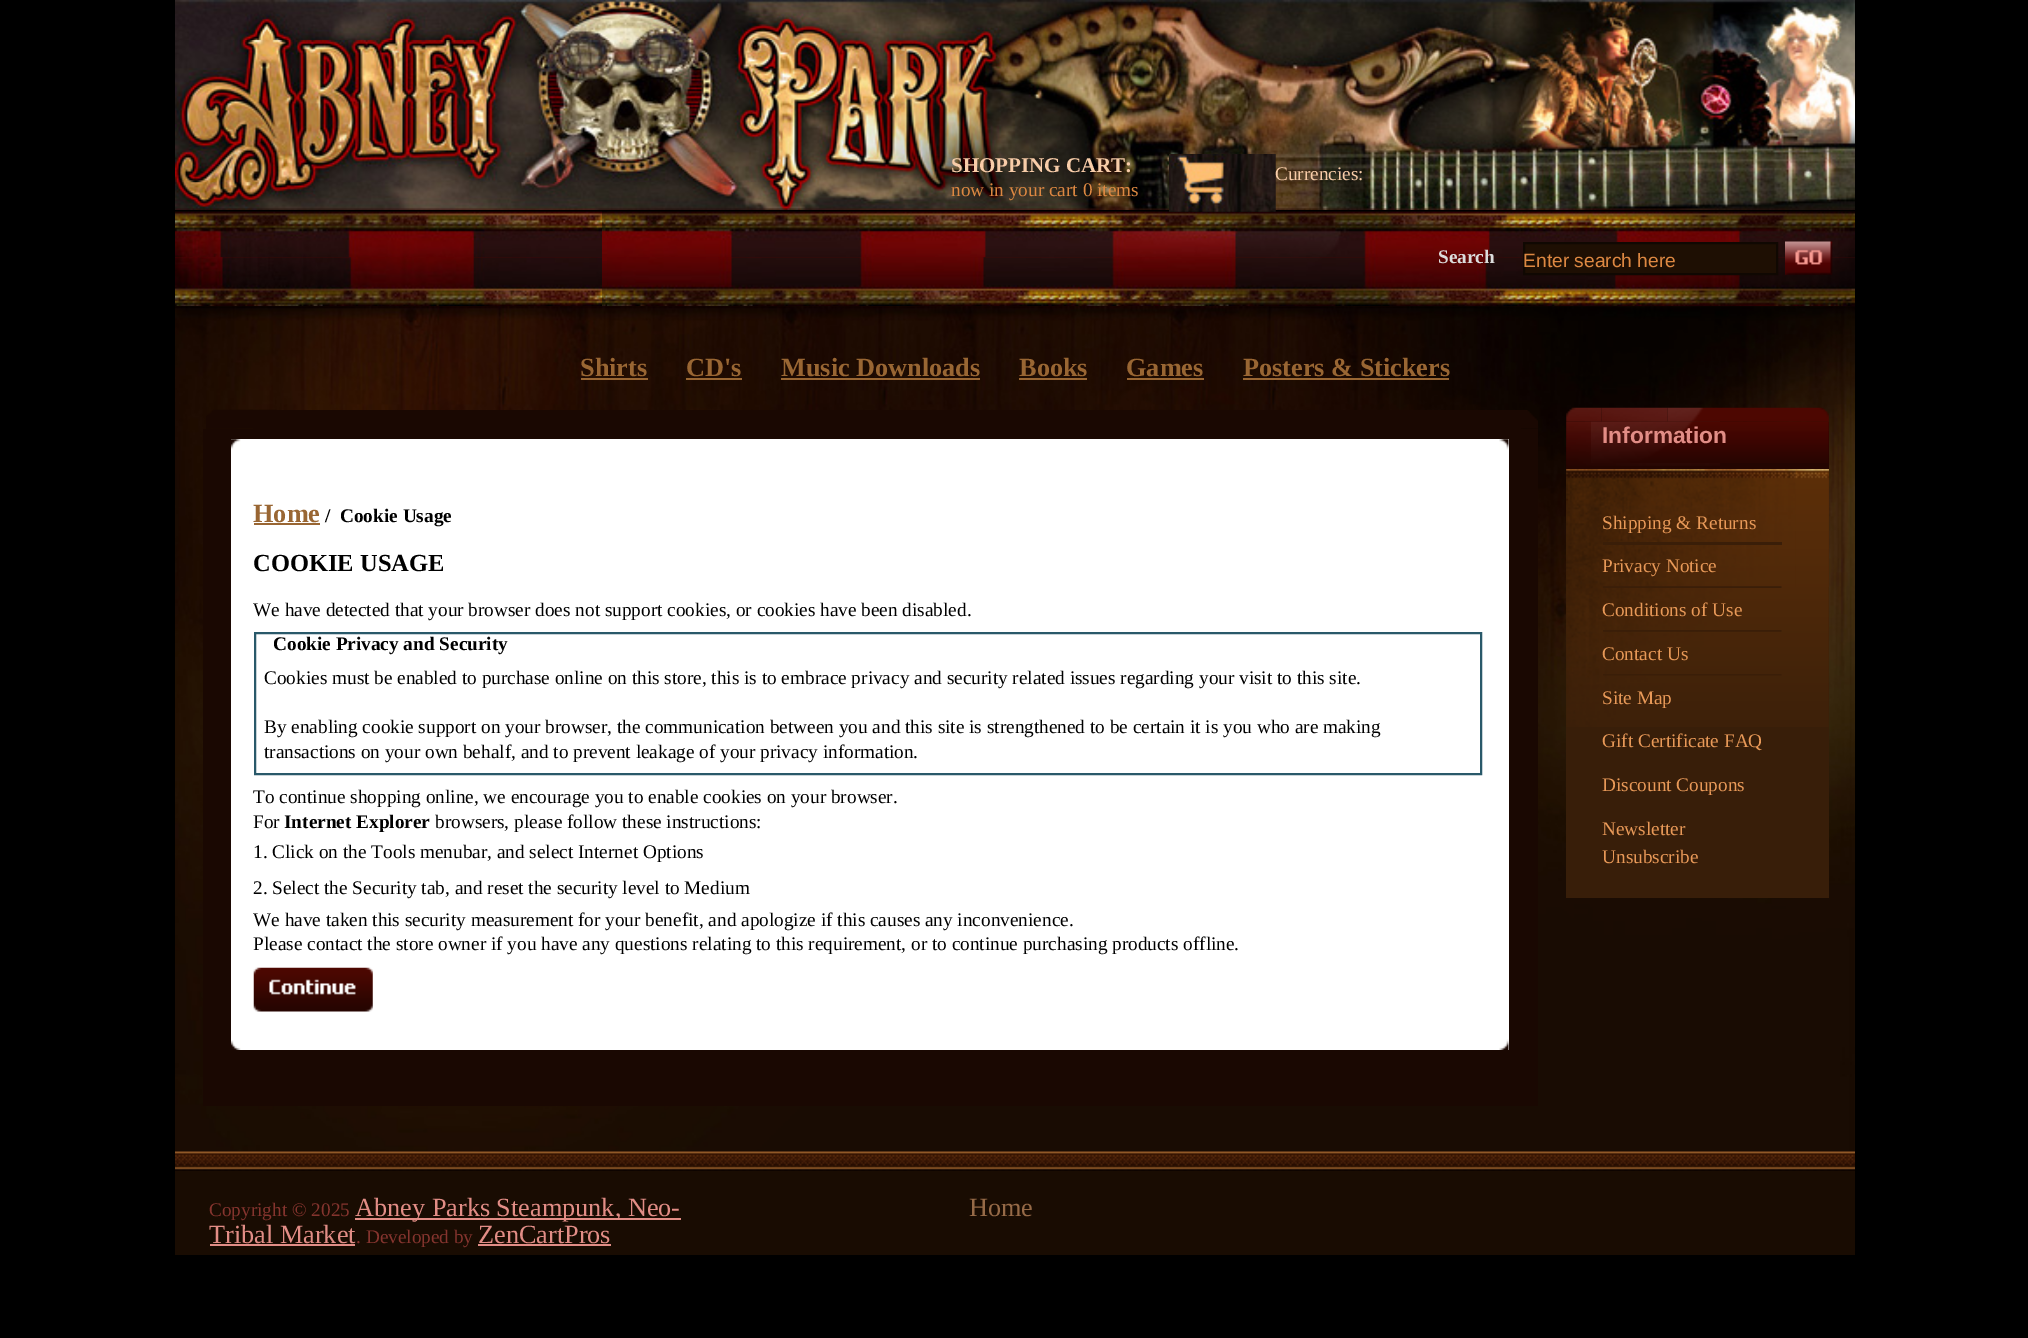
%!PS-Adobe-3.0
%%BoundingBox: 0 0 2028 1338
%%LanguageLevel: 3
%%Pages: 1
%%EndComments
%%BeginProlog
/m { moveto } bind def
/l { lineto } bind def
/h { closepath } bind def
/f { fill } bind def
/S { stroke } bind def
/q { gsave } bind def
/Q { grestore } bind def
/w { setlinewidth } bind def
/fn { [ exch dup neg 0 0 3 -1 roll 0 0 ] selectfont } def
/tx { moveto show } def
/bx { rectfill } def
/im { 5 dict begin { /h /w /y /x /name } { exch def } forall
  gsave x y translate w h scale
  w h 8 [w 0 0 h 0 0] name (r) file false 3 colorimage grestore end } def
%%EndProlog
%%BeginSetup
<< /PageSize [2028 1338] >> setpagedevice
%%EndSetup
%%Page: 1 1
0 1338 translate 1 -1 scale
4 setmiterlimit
0 setgray
0 0 2028 1338 bx
(image0.raw) 175 0 1680 210 im
(image1.raw) 175 40 608 142 im
(image3.raw) 175 211 1680 43 im
0.376 0.012 0.012 setrgbcolor
175 254 1680 7 bx
(image6.raw) 607 211 1248 47 im
(image2.raw) 1169 154 107 58 im
/LiberationSerif-Bold 21 fn
0.976 0.804 0.663 setrgbcolor
(SHOPPING CART:) 951 172 tx
/LiberationSerif-Regular 19.25 fn
0.867 0.533 0.259 setrgbcolor
(now in your cart 0 items) 951 196 tx
0.976 0.804 0.663 setrgbcolor
(Currencies:) 1275 180 tx
(image4.raw) 602 261 6 45 im
(image5.raw) 175 211 427 47 im
(image7.raw) 175 257 427 49 im
(image8.raw) 607 257 1248 49 im
/LiberationSerif-Bold 19.25 fn
0.863 setgray
(Search) 1438 263 tx
0.118 0.059 0.012 setrgbcolor
1524 243 m 1777 243 l 1777 274 l 1524 274 l h q f Q
0.063 0.031 0.008 setrgbcolor
2 w
S
/LiberationSans-Regular 19.25 fn
0.867 0.533 0.259 setrgbcolor
(Enter search here) 1523 267 tx
(image9.raw) 1785 241 48 34 im
0.102 0.031 0.008 setrgbcolor
175 306 1680 846 bx
(image10.raw) 175 306 1680 845 im
/LiberationSerif-Bold 26.25 fn
0.6 0.4 0.2 setrgbcolor
(Shirts) 580 376 tx
581 378 67 2 bx
(CD's) 686 376 tx
686 378 56 2 bx
(Music Downloads) 781 376 tx
781 378 199 2 bx
(Books) 1019 376 tx
1019 378 68 2 bx
(Games) 1126 376 tx
1127 378 77 2 bx
(Posters & Stickers) 1243 376 tx
1243 378 206 2 bx
(image11.raw) 1521 410 17 19 im
(image12.raw) 206 409 71 20 im
0.102 0.031 0.008 setrgbcolor
253 410 1268 19 bx
203 429 1335 677 bx
1 setgray
231 439 1278 611 bx
(image13.raw) 231 1040 10 10 im
(image14.raw) 1499 1039 10 11 im
(image15.raw) 231 439 10 11 im
(image16.raw) 1499 439 10 11 im
0.6 0.4 0.2 setrgbcolor
(Home) 253 522 tx
254 523 66 2 bx
/LiberationSerif-Bold 19.25 fn
0 setgray
(/  Cookie Usage) 325 522 tx
/LiberationSerif-Bold 24.5 fn
(COOKIE USAGE) 253 571 tx
/LiberationSerif-Regular 19.25 fn
(We have detected that your browser does not support cookies, or cookies have been disabled.) 253 616 tx
0.161 0.349 0.416 setrgbcolor
255 633 1226 141 rectstroke
/LiberationSerif-Bold 19.25 fn
0 setgray
(Cookie Privacy and Security) 273 650 tx
/LiberationSerif-Regular 19.25 fn
(Cookies must be enabled to purchase online on this store, this is to embrace privacy and security related issues regarding your visit to this site.) 264 684 tx
(By enabling cookie support on your browser, the communication between you and this site is strengthened to be certain it is you who are making) 264 733 tx
(transactions on your own behalf, and to prevent leakage of your privacy information.) 264 758 tx
(To continue shopping online, we encourage you to enable cookies on your browser.) 253 803 tx
(For) 253 828 tx
/LiberationSerif-Bold 19.25 fn
(Internet Explorer) 284 828 tx
/LiberationSerif-Regular 19.25 fn
(browsers, please follow these instructions:) 435 828 tx
(1. Click on the Tools menubar, and select Internet Options) 253 858 tx
(2. Select the Security tab, and reset the security level to Medium) 253 894 tx
(We have taken this security measurement for your benefit, and apologize if this causes any inconvenience.) 253 926 tx
(Please contact the store owner if you have any questions relating to this requirement, or to continue purchasing products offline.) 253 950 tx
(image17.raw) 253 967 120 45 im
(image18.raw) 1566 407 36 15 im
(image19.raw) 1667 407 162 15 im
(image20.raw) 1601 407 67 15 im
0.137 0.02 0.004 setrgbcolor
1566 422 263 47 bx
(image21.raw) 1566 421 155 45 im
(image22.raw) 1591 421 238 42 im
/LiberationSans-Bold 22.75 fn
0.886 0.553 0.525 setrgbcolor
(Information) 1602 443 tx
0.22 0.118 0.035 setrgbcolor
1566 469 263 429 bx
(image23.raw) 1566 469 263 258 im
(image24.raw) 1795 469 34 118 im
/LiberationSerif-Regular 19.25 fn
0.91 0.6 0.345 setrgbcolor
(Shipping & Returns) 1602 529 tx
0.227 0.118 0.031 setrgbcolor
1603 542 179 3 bx
0.91 0.6 0.345 setrgbcolor
(Privacy Notice) 1602 572 tx
(image25.raw) 1603 586 179 2 im
(Conditions of Use) 1602 616 tx
(image26.raw) 1603 630 179 2 im
(Contact Us) 1602 660 tx
(image27.raw) 1603 674 179 2 im
(Site Map) 1602 704 tx
(Gift Certificate FAQ) 1602 747 tx
(Discount Coupons) 1602 791 tx
(Newsletter) 1602 835 tx
(Unsubscribe) 1602 863 tx
0.098 0.047 0.008 setrgbcolor
175 1170 1680 85 bx
(image28.raw) 175 1151 1680 20 im
0.522 0.204 0.18 setrgbcolor
(Copyright © 2025) 209 1216 tx
0.886 0.553 0.525 setrgbcolor
355 1218 326 2 bx
/LiberationSerif-Regular 26.25 fn
(Abney Parks Steampunk, Neo-) 355 1216 tx
(Tribal Market) 209 1243 tx
210 1244 145 2 bx
/LiberationSerif-Regular 19.25 fn
0.522 0.204 0.18 setrgbcolor
(. Developed by) 356 1243 tx
/LiberationSerif-Regular 26.25 fn
0.886 0.553 0.525 setrgbcolor
(ZenCartPros) 478 1243 tx
478 1244 133 2 bx
0.588 0.416 0.278 setrgbcolor
(Home) 969 1216 tx
showpage
%%EOF
